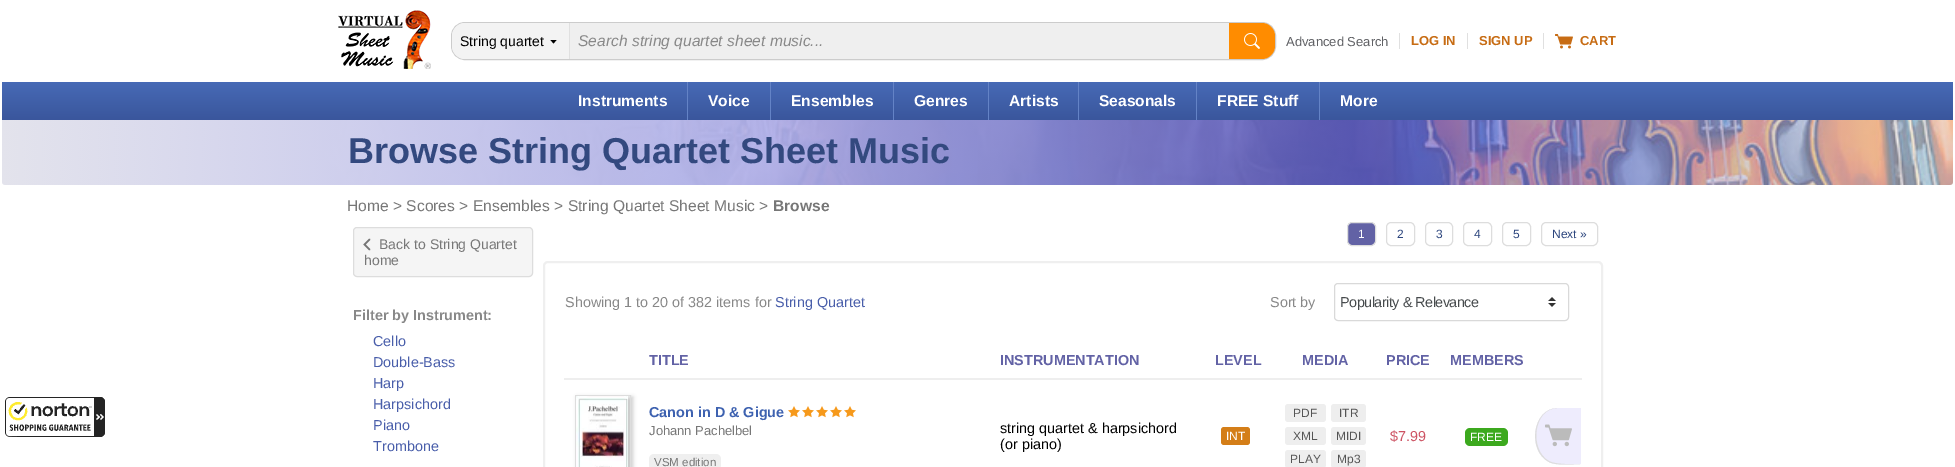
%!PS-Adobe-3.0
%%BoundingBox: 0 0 1955 467
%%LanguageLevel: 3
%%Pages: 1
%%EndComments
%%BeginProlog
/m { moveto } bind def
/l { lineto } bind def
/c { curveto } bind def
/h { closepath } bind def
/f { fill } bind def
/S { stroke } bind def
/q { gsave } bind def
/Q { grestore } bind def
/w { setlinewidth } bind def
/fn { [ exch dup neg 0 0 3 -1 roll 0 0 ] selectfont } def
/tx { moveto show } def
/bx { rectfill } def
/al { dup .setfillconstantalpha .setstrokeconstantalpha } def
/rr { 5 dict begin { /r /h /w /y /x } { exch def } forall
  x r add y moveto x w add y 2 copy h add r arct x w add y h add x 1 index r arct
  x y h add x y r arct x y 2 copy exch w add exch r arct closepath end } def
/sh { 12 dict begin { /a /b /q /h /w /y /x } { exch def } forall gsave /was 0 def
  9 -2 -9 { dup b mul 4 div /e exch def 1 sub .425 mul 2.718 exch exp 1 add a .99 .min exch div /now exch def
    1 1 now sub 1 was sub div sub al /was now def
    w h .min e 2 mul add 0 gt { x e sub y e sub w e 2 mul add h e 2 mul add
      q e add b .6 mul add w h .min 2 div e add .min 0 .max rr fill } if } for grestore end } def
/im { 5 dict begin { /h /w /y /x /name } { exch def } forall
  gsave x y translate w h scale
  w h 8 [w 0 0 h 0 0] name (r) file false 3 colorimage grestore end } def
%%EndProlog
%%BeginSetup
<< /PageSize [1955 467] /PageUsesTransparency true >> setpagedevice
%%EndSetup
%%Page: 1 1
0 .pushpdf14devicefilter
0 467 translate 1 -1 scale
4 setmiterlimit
1 setgray
0 0 1955 467 bx
(image0.raw) 5 397 100 40 im
(image1.raw) 338 10 93 59 im
0.8 setgray
451.5 22.5 824 37 13.5 rr S
0.953 setgray
465 23 m 570 23 l 570 59 l 465 59 l 458 59 452 53 452 46 c 452 36 l 452 29 458 23 465 23 c h f
0 setgray
550.5 40 m 553.5 43.5 l 556.5 40 l h f
0.878 setgray
569 23 1 36 bx
/LiberationSans-Regular 14 fn
0 setgray
(String quartet) 460 46 tx
0.937 setgray
570 23 659 36 bx
/LiberationSans-Italic 15.6 fn
0.533 setgray
(Search string quartet sheet music...) 578 46 tx
1 0.549 0 setrgbcolor
1229 23 m 1262 23 l 1269 23 1275 29 1275 36 c 1275 46 l 1275 53 1269 59 1262 59 c 1229 59 l h f
(image2.raw) 1244 33 16 16 im
/LiberationSans-Regular 13 fn
0.376 0.38 0.396 setrgbcolor
(Advanced Search) 1286 46 tx
0.878 setgray
1399 33 1 16 bx
/LiberationSans-Bold 13 fn
0.78 0.424 0.078 setrgbcolor
(LOG IN) 1411 45 tx
0.878 setgray
1467 33 1 16 bx
0.78 0.424 0.078 setrgbcolor
(SIGN UP) 1479 45 tx
0.878 setgray
1543 33 1 16 bx
(image3.raw) 1555 34 18 15 im
0.78 0.424 0.078 setrgbcolor
(CART) 1580 45 tx
q 2 82 m 1953 82 l 1953 120 l 2 120 l h clip newpath
<< /ShadingType 2 /ColorSpace /DeviceRGB /Coords [978 82 978 120] /Extend [true true] /Function << /FunctionType 2 /Domain [0 1] /C0 [0.278 0.416 0.714] /C1 [0.227 0.337 0.612] /N 1 >> >> shfill Q
0.392 0.514 0.776 setrgbcolor
687 82 1 38 bx
/LiberationSans-Bold 15.6 fn
1 setgray
(Instruments) 578 106 tx
0.392 0.514 0.776 setrgbcolor
770 82 1 38 bx
1 setgray
(Voice) 708 106 tx
0.392 0.514 0.776 setrgbcolor
893 82 1 38 bx
1 setgray
(Ensembles) 791 106 tx
0.392 0.514 0.776 setrgbcolor
988 82 1 38 bx
1 setgray
(Genres) 914 106 tx
0.392 0.514 0.776 setrgbcolor
1078 82 1 38 bx
1 setgray
(Artists) 1009 106 tx
0.392 0.514 0.776 setrgbcolor
1196 82 1 38 bx
1 setgray
(Seasonals) 1099 106 tx
0.392 0.514 0.776 setrgbcolor
1319 82 1 38 bx
1 setgray
(FREE Stuff) 1217 106 tx
(More) 1340 106 tx
(image4.raw) 2 120 1951 65 im
/LiberationSans-Bold 36 fn
0.2 0.286 0.498 setrgbcolor
(Browse String Quartet Sheet Music) 348 163 tx
/LiberationSans-Regular 15.6 fn
0.467 setgray
(Home > Scores > Ensembles > String Quartet Sheet Music >) 347 211 tx
/LiberationSans-Bold 15.6 fn
(Browse) 773 211 tx
0.961 setgray
353.5 227.5 179 49 3.5 rr q f Q
0.867 setgray
S
0.463 setgray
1.5 w
1 setlinecap
369.5 249.5 m 364.5 244.5 l 369.5 239.5 l S
/LiberationSans-Regular 14 fn
0.467 setgray
(Back to String Quartet) 379 249 tx
(home) 364 265 tx
/LiberationSans-Bold 14.4 fn
0.533 setgray
(Filter by Instrument:) 353 320 tx
/LiberationSans-Regular 14.4 fn
0.286 0.369 0.667 setrgbcolor
(Cello) 373 346 tx
(Double-Bass) 373 367 tx
(Harp) 373 388 tx
(Harpsichord) 373 409 tx
(Piano) 373 430 tx
(Trombone) 373 451 tx
0.384 0.384 0.647 setrgbcolor
1347.5 222.5 28 23 4.5 rr q f Q
0.867 setgray
1 w
0 setlinecap
S
/LiberationSans-Regular 12 fn
1 setgray
(1) 1358 238 tx
0.867 setgray
1386.5 222.5 28 23 4.5 rr S
0.176 0.275 0.494 setrgbcolor
(2) 1397 238 tx
0.867 setgray
1425.5 222.5 27 23 4.5 rr S
0.176 0.275 0.494 setrgbcolor
(3) 1436 238 tx
0.867 setgray
1463.5 222.5 28 23 4.5 rr S
0.176 0.275 0.494 setrgbcolor
(4) 1474 238 tx
0.867 setgray
1502.5 222.5 28 23 4.5 rr S
0.176 0.275 0.494 setrgbcolor
(5) 1513 238 tx
0.867 setgray
1541.5 222.5 56 23 4.5 rr S
0.176 0.275 0.494 setrgbcolor
(Next ») 1552 238 tx
0.937 setgray
2 w
544 262 1058 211 4 rr S
/LiberationSans-Regular 14.4 fn
0.533 setgray
(Showing 1 to 20 of 382 items for) 565 307 tx
0.286 0.369 0.667 setrgbcolor
(String Quartet) 775 307 tx
0.533 setgray
(Sort by) 1270 307 tx
(image5.raw) 1548 297 8 10 im
0.851 setgray
1 w
1334.5 283.5 234 37 3.5 rr S
0.275 0.29 0.298 setrgbcolor
1340 307 m -0.5 0 (Popularity & Relevance) ashow
/LiberationSans-Bold 14.4 fn
0.384 0.384 0.647 setrgbcolor
(TITLE) 649 365 tx
(INSTRUMENTATION) 1000 365 tx
(LEVEL) 1215 365 tx
(MEDIA) 1302 365 tx
(PRICE) 1386 365 tx
(MEMBERS) 1450 365 tx
0.933 setgray
564 378 1018 2 bx
0 setgray
577 397 56 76 0 2 0.2 sh
0.867 setgray
575.5 395.5 55 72 rectstroke
(image6.raw) 576 396 52 71 im
0.243 0.384 0.69 setrgbcolor
(Canon in D & Gigue) 649 417 tx
(image7.raw) 788 406 12 12 im
(image7.raw) 802 406 12 12 im
(image7.raw) 816 406 12 12 im
(image7.raw) 830 406 12 12 im
(image7.raw) 844 406 12 12 im
/LiberationSans-Regular 13 fn
0.467 setgray
(Johann Pachelbel) 649 435 tx
0.937 setgray
649 454 72 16 5 rr f
/LiberationSans-Regular 11.5 fn
0.467 setgray
(VSM edition) 654 466 tx
/LiberationSans-Regular 14.4 fn
0 setgray
(string quartet & harpsichord) 1000 433 tx
(\(or piano\)) 1000 449 tx
0.831 0.494 0.094 setrgbcolor
1221 427 29 18 3 rr f
/LiberationSans-Regular 12 fn
1 setgray
(INT) 1226 440 tx
0.933 setgray
1285 404 41 18 3 rr f
0.333 setgray
(PDF) 1293 417 tx
0.933 setgray
1331 404 35 18 3 rr f
0.333 setgray
(ITR) 1339 417 tx
0.933 setgray
1285 427 41 18 3 rr f
0.333 setgray
(XML) 1293 440 tx
0.933 setgray
1331 427 35 18 3 rr f
0.333 setgray
(MIDI) 1336 440 tx
0.933 setgray
1285 450 41 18 3 rr f
0.333 setgray
(PLAY) 1290 463 tx
0.933 setgray
1331 450 35 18 3 rr f
0.333 setgray
(Mp3) 1337 463 tx
/LiberationSans-Regular 14.4 fn
0.804 0.325 0.388 setrgbcolor
($7.99) 1390 441 tx
0.235 0.663 0.118 setrgbcolor
1465 428 43 18 5 rr f
/LiberationSans-Regular 12 fn
1 setgray
(FREE) 1470 441 tx
0.933 0.925 0.992 setrgbcolor
1558 408 m 1581 408 l 1581 464 l 1573 464 1556 466 1549 462 c 1527 451 1532 408 1558 408 c h f
0.867 setgray
1558 408 m 1581 408 l 1581 464 l 1573 464 1556 466 1549 462 c 1527 451 1532 408 1558 408 c h 1558 408 m 1581 408 l 1581 464 l 1573 464 1556 465 1549 461 c 1529 450 1533 408 1558 408 c h eofill
(image8.raw) 1545 424 27 23 im
.poppdf14devicefilter showpage
%%EOF
